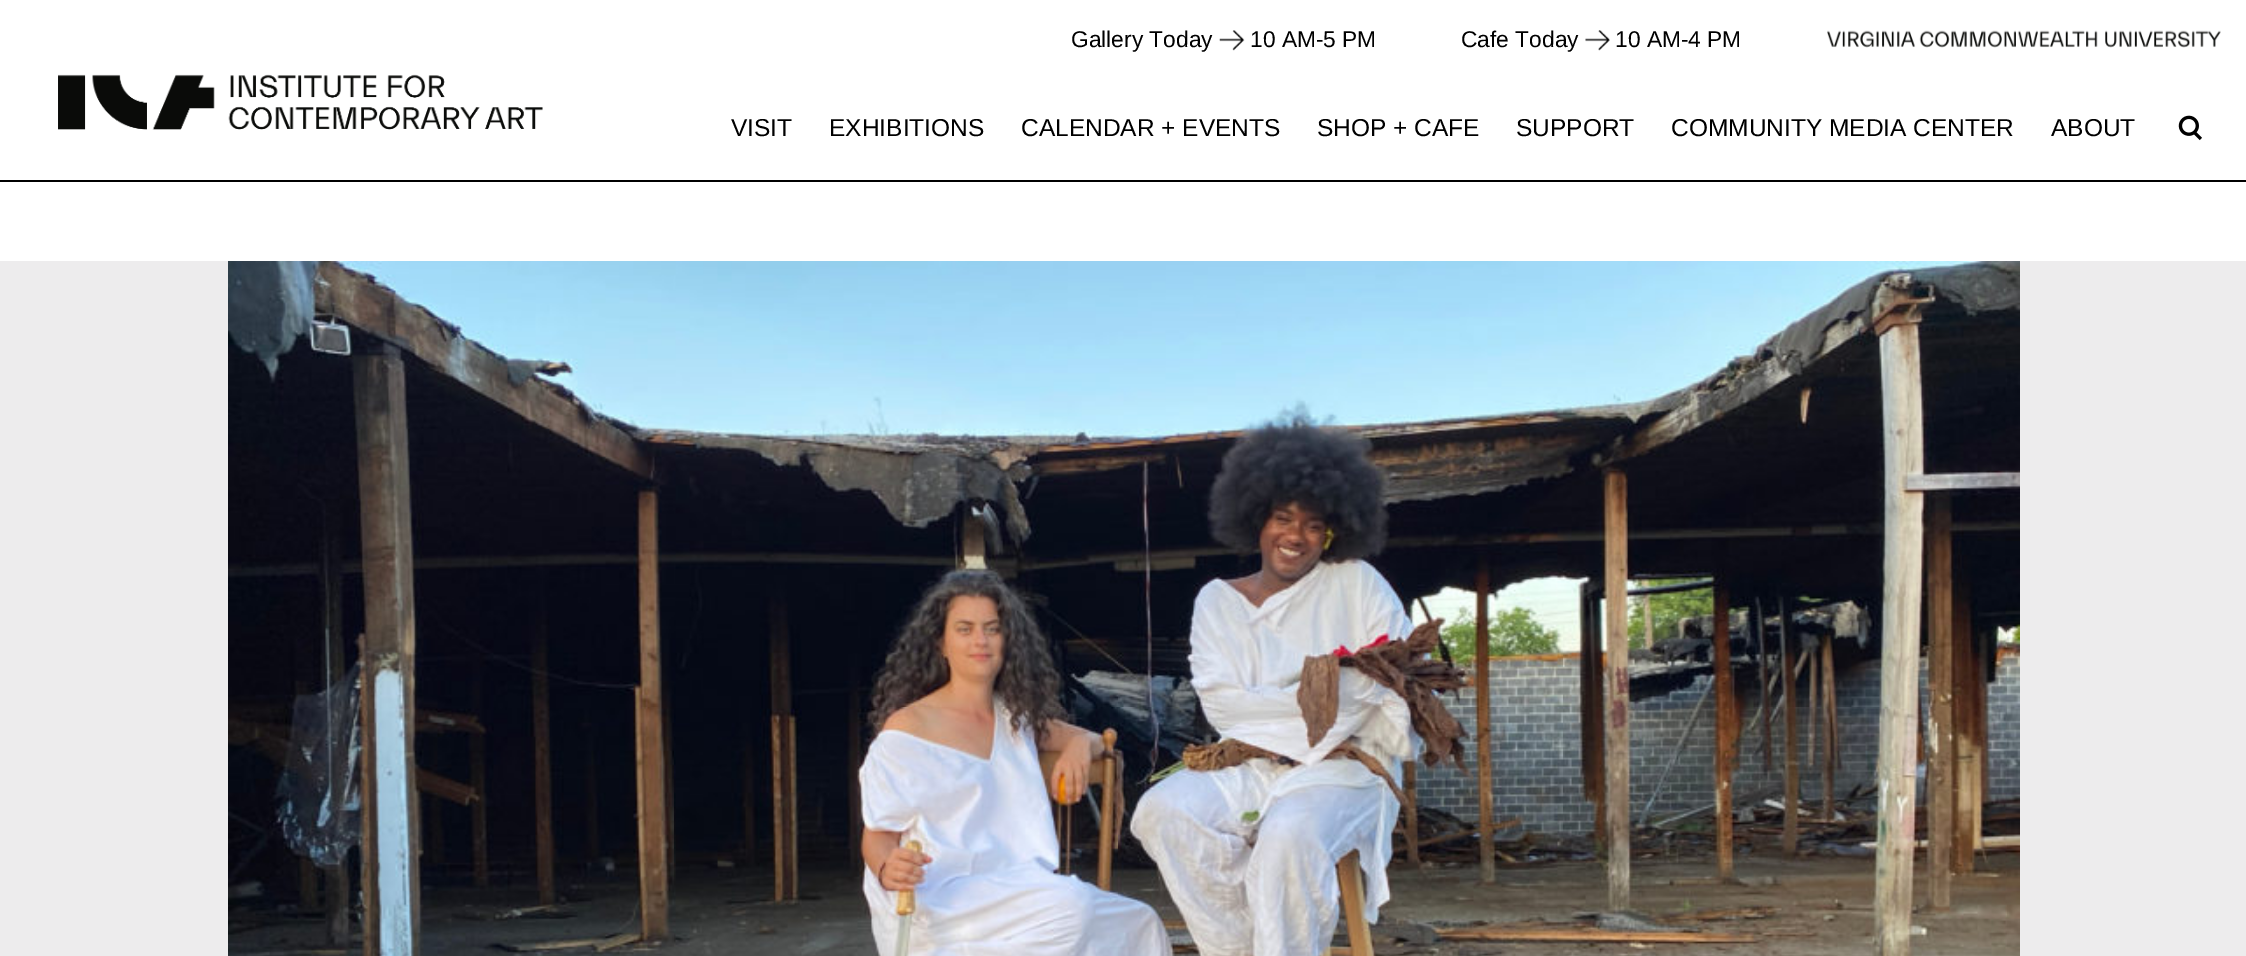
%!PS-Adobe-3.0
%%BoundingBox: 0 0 2246 956
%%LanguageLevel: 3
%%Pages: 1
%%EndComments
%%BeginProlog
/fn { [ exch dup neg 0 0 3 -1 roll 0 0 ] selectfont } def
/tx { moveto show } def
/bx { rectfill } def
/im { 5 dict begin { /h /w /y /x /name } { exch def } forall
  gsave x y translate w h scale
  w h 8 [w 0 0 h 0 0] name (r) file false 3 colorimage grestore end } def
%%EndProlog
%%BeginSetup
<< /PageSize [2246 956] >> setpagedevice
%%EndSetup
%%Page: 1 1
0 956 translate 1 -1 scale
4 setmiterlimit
1 setgray
0 0 2246 956 bx
0 setgray
0 180 2246 2 bx
(image0.raw) 58 74 485 56 im
/LiberationSans-Regular 22.75 fn
(Gallery Today) 1071 47 tx
(image1.raw) 1219 30 26 21 im
(10 AM-5 PM) 1250 47 tx
(Cafe Today) 1461 47 tx
(image2.raw) 1585 30 25 21 im
(10 AM-4 PM) 1615 47 tx
(image3.raw) 1827 30 394 18 im
/LiberationSans-Regular 24.5 fn
(VISIT) 731 136 tx
(EXHIBITIONS) 829 136 tx
(CALENDAR + EVENTS) 1021 136 tx
(SHOP + CAFE) 1317 136 tx
(SUPPORT) 1516 136 tx
(COMMUNITY MEDIA CENTER) 1671 136 tx
(ABOUT) 2051 136 tx
(image4.raw) 2178 115 24 26 im
0.929 0.925 0.929 setrgbcolor
0 261 2246 695 bx
(image5.raw) 228 261 1792 695 im
showpage
%%EOF
